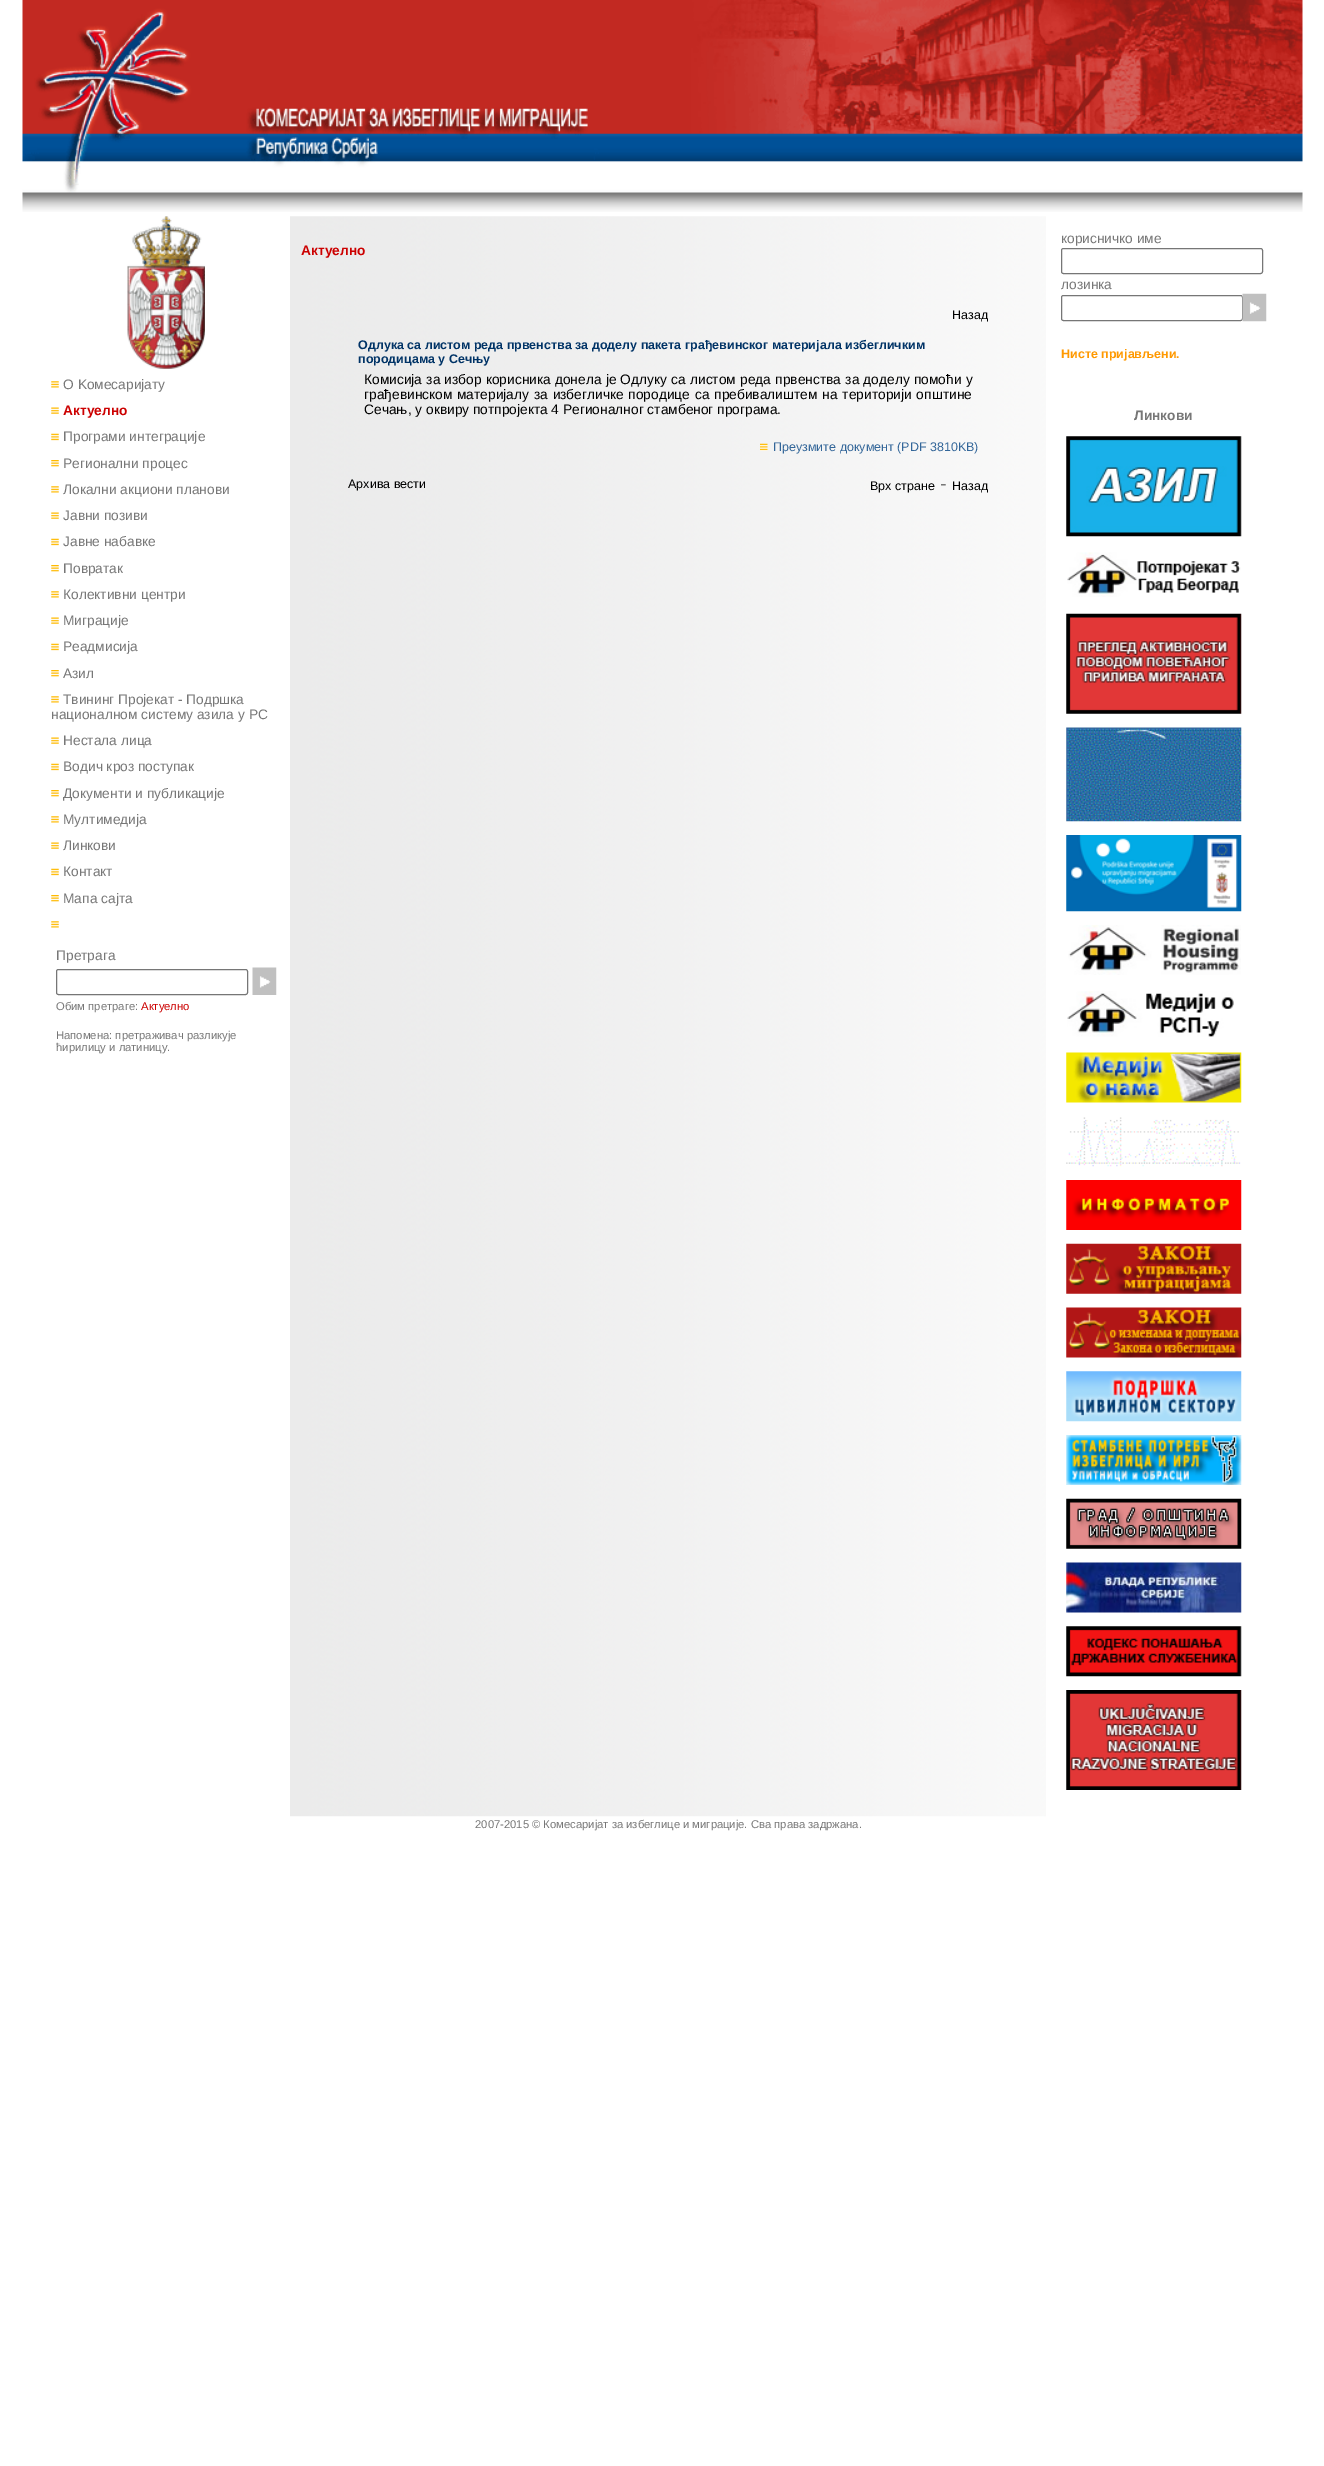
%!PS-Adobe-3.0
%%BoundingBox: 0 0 1324 2466
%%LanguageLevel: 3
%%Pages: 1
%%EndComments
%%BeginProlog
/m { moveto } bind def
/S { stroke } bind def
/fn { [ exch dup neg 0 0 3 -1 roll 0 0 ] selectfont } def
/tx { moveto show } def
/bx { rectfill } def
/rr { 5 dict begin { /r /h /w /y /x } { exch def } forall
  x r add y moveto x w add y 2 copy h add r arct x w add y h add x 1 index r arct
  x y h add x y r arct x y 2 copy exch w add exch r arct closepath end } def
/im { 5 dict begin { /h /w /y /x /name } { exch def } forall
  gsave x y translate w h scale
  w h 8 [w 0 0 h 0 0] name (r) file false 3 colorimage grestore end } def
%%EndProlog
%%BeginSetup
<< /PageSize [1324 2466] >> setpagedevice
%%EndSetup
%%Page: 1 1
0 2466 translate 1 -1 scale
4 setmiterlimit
1 setgray
0 0 1324 2466 bx
(image0.raw) 22 0 1281 212 im
(image1.raw) 127 216 78 153 im
(image2.raw) 51 381 8 7 im
/LiberationSans-Regular 13.75 fn
0.467 setgray
(О Kомесаријату) 63 389 tx
(image3.raw) 51 407 8 7 im
/LiberationSans-Bold 13.75 fn
0.8 0 0 setrgbcolor
(Актуелно) 63 415 tx
(image4.raw) 51 433 8 8 im
/LiberationSans-Regular 13.75 fn
0.467 setgray
(Програми интеграције) 63 441 tx
(image5.raw) 51 460 8 7 im
(Регионални процес) 63 468 tx
(image2.raw) 51 486 8 7 im
(Локални акциони планови) 63 494 tx
(image6.raw) 51 512 8 7 im
(Јавни позиви) 63 520 tx
(image4.raw) 51 538 8 8 im
(Јавне набавке) 63 546 tx
(image5.raw) 51 565 8 7 im
(Повратак) 63 573 tx
(image2.raw) 51 591 8 7 im
(Колективни центри) 63 599 tx
(image3.raw) 51 617 8 7 im
(Миграције) 63 625 tx
(image4.raw) 51 643 8 8 im
(Реадмисија) 63 651 tx
(image5.raw) 51 670 8 7 im
(Азил) 63 678 tx
(image2.raw) 51 696 8 7 im
(Твининг Пројекат - Подршка) 63 704 tx
(националном систему азила у РС) 51 719 tx
(image3.raw) 51 737 8 7 im
(Нестала лица) 63 745 tx
(image4.raw) 51 763 8 8 im
(Водич кроз поступак) 63 771 tx
(image5.raw) 51 790 8 7 im
(Документи и публикације) 63 798 tx
(image2.raw) 51 816 8 7 im
(Мултимедија) 63 824 tx
(image3.raw) 51 842 8 7 im
(Линкови) 63 850 tx
(image4.raw) 51 868 8 8 im
(Контакт) 63 876 tx
(image5.raw) 51 895 8 7 im
(Мапа сајта) 63 903 tx
(image2.raw) 51 921 8 7 im
(Претрага) 56 960 tx
0.463 setgray
56.5 969.5 191 25 2 rr S
(image7.raw) 252 967 25 28 im
/LiberationSans-Regular 11.25 fn
0.467 setgray
(Обим претраге:) 56 1010 tx
0.8 0 0 setrgbcolor
(Актуелно) 141 1010 tx
0.467 setgray
(Напомена: претраживач разликује) 56 1039 tx
(ћирилицу и латиницу.) 56 1051 tx
(image8.raw) 290 216 756 1601 im
/LiberationSans-Bold 13.75 fn
0.8 0 0 setrgbcolor
(Актуелно) 301 255 tx
/LiberationSans-Regular 12.5 fn
0 setgray
(Назад) 952 319 tx
/LiberationSans-Bold 12.5 fn
0 0.2 0.4 setrgbcolor
(Одлука са листом реда првенства за доделу пакета грађевинског материјала избегличким) 358 349 tx
(породицама у Сечњу) 358 363 tx
/LiberationSans-Regular 13.75 fn
0 setgray
364 384 m 0.4 0 32 (Комисија за избор корисника донела је Одлуку са листом реда првенства за доделу помоћи у) widthshow
364 399 m 1 0 32 (грађевинском материјалу за избегличке породице са пребивалиштем на територији општине) widthshow
(Сечањ, у оквиру потпројекта 4 Регионалног стамбеног програма.) 364 414 tx
(image9.raw) 760 443 8 8 im
/LiberationSans-Regular 12.5 fn
0.2 0.4 0.6 setrgbcolor
(Преузмите документ \(PDF 3810KB\)) 773 451 tx
0 setgray
(Архива вести) 348 488 tx
(Врх стране) 870 490 tx
/LiberationSans-Regular 20 fn
0.467 setgray
(-) 940 490 tx
/LiberationSans-Regular 12.5 fn
0 setgray
(Назад) 952 490 tx
/LiberationSans-Regular 13.75 fn
0.467 setgray
(корисничко име) 1061 243 tx
0.463 setgray
1061.5 248.5 201 25 2 rr S
0.467 setgray
(лозинка) 1061 289 tx
0.463 setgray
1061.5 295.5 181 25 2 rr S
(image10.raw) 1242 293 25 29 im
/LiberationSans-Bold 12.5 fn
1 0.6 0 setrgbcolor
(Нисте пријављени.) 1061 358 tx
/LiberationSans-Bold 13.75 fn
0.467 setgray
(Линкови) 1134 420 tx
(image11.raw) 1066 436 176 101 im
(image12.raw) 1067 552 174 45 im
(image13.raw) 1066 613 176 101 im
(image14.raw) 1066 727 176 95 im
(image15.raw) 1066 835 176 77 im
(image16.raw) 1068 925 173 50 im
(image17.raw) 1067 991 167 46 im
(image18.raw) 1066 1052 176 51 im
(image19.raw) 1066 1117 175 50 im
(image20.raw) 1066 1180 176 50 im
(image21.raw) 1066 1243 176 51 im
(image22.raw) 1066 1307 176 51 im
(image23.raw) 1066 1371 176 51 im
(image24.raw) 1066 1435 176 50 im
(image25.raw) 1066 1498 176 51 im
(image26.raw) 1066 1562 176 51 im
(image27.raw) 1066 1626 176 51 im
(image28.raw) 1066 1690 176 100 im
/LiberationSans-Regular 11.25 fn
(2007-2015 © Комесаријат за избеглице и миграције. Сва права задржана.) 475 1828 tx
showpage
%%EOF
